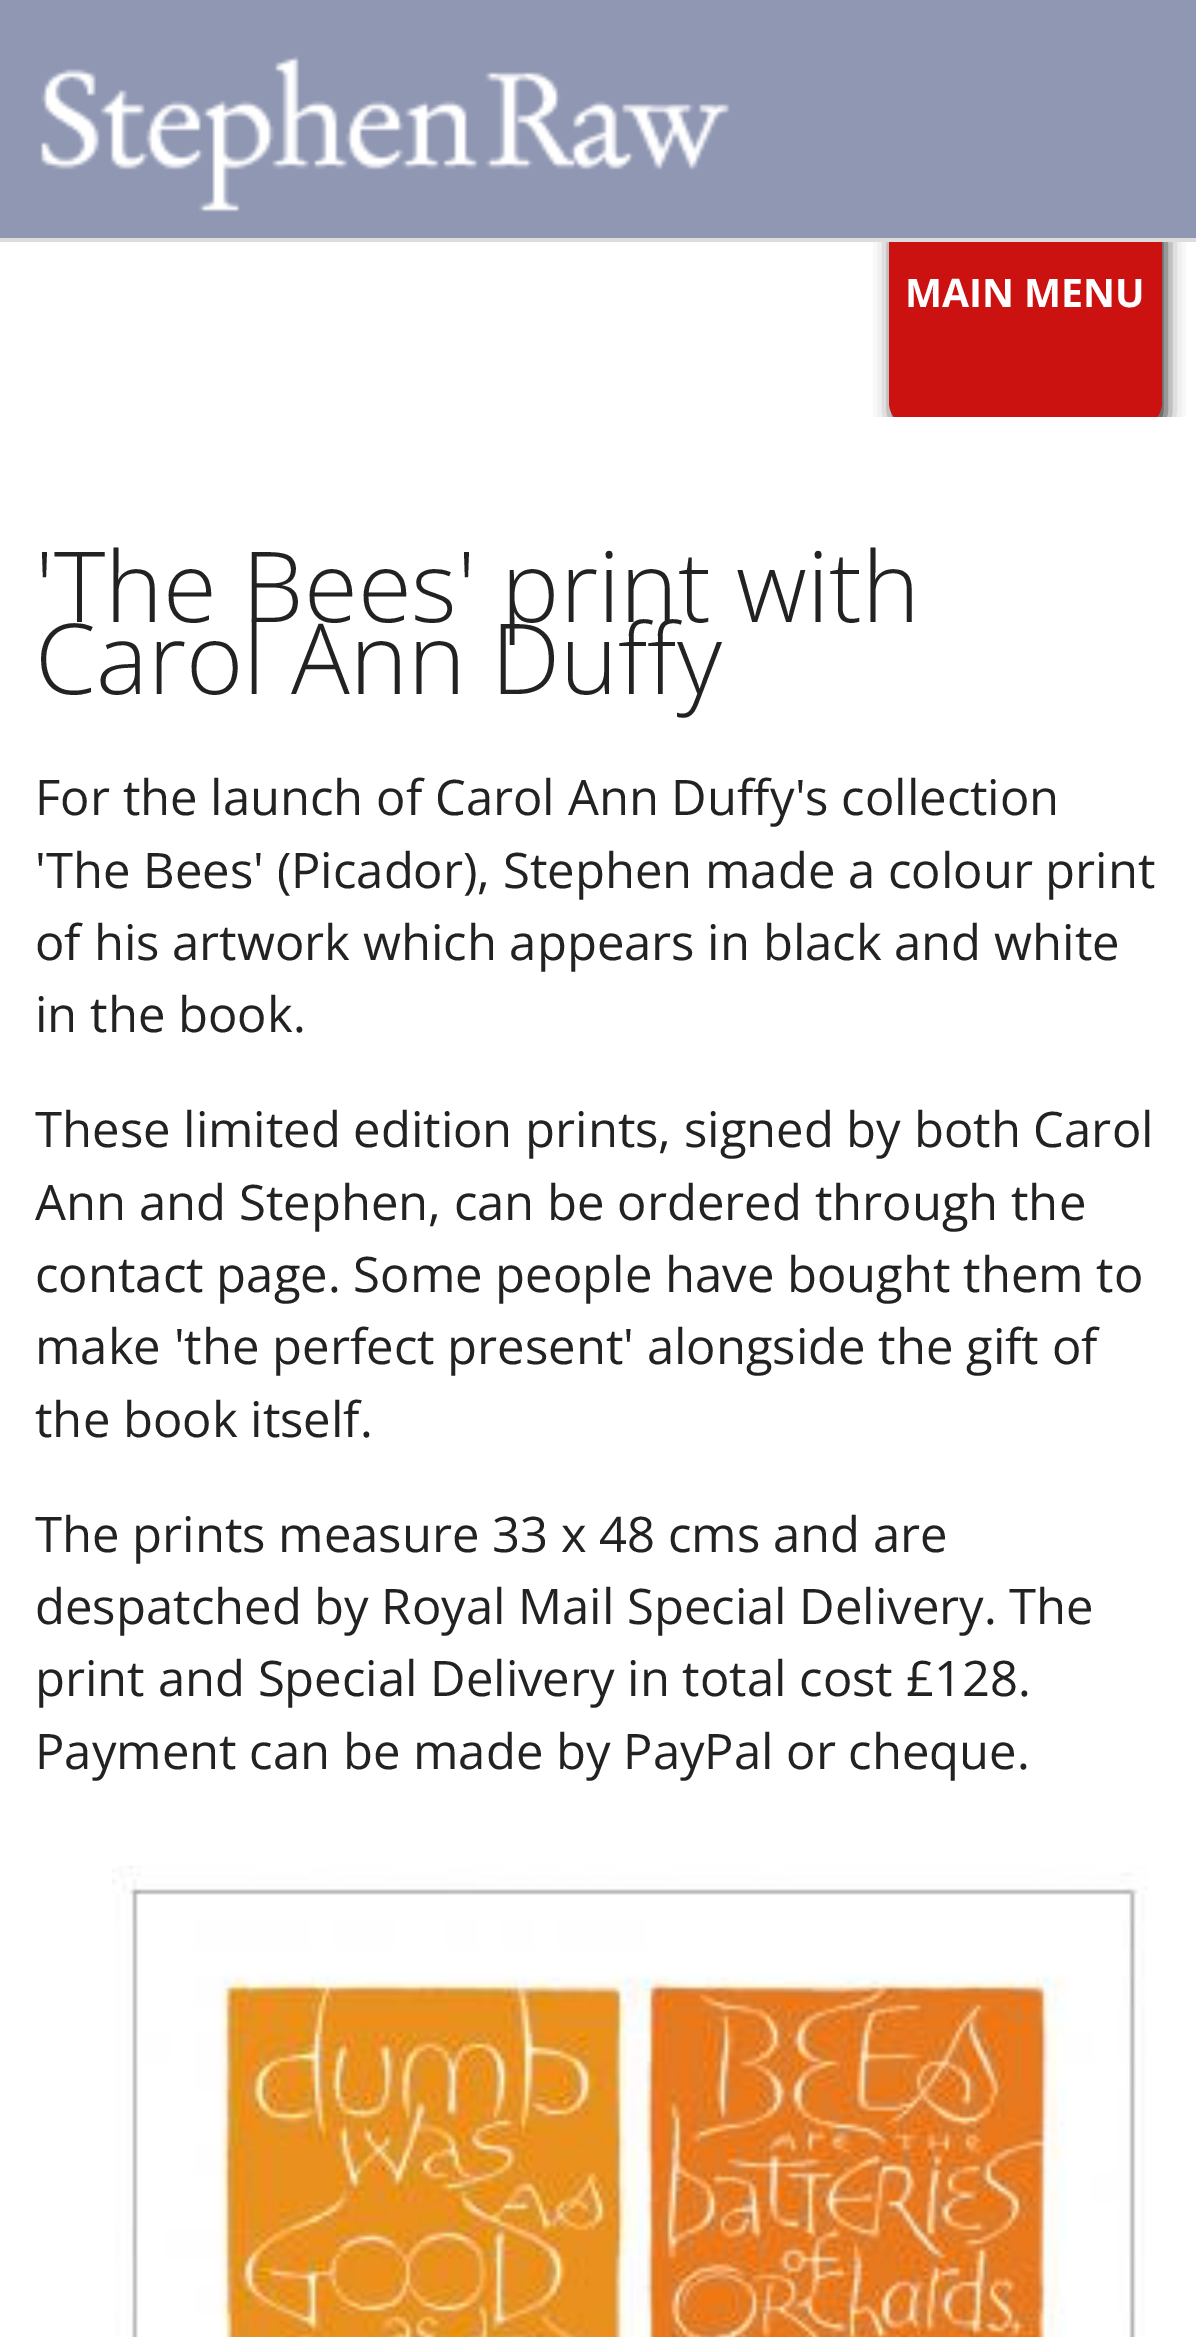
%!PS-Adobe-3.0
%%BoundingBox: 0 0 1196 2337
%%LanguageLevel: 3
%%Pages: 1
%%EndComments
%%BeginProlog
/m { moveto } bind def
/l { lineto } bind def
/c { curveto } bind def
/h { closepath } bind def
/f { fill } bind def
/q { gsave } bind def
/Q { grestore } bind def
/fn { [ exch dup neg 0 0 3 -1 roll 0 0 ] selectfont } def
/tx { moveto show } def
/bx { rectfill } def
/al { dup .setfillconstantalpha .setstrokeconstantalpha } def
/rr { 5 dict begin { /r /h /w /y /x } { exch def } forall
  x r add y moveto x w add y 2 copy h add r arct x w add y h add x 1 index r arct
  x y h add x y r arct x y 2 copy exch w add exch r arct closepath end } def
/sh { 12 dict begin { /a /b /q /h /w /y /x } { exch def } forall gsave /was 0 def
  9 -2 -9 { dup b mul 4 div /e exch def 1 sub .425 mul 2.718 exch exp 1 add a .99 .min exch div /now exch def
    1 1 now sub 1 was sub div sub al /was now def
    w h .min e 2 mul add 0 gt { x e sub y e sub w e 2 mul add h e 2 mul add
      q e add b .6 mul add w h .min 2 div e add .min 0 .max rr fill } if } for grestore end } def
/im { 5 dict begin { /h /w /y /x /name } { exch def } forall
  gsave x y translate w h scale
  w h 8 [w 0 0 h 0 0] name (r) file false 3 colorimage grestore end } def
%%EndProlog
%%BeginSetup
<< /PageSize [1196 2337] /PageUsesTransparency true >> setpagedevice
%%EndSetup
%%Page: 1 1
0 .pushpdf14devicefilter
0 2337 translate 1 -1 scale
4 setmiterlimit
1 setgray
0 0 1196 2337 bx
0.561 0.592 0.702 setrgbcolor
0 0 1196 238 bx
(image0.raw) 40 55 690 157 im
0.867 setgray
0 238 1196 4 bx
q
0 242 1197 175 rectclip
0 setgray
893 217 273 221 25 9 0.8 sh
Q
q
0 242 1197 175 rectclip
0.8 0.067 0.067 setrgbcolor
889 207 m 1162 207 l 1162 402 l 1162 416 1151 427 1137 427 c 914 427 l 900 427 889 416 889 402 c h f
Q
/OpenSans-Bold 39.25 fn
1 setgray
(MAIN MENU) 905 307 tx
/OpenSans-Light 98 fn
0.133 setgray
('The Bees' print with) 35 622 tx
(Carol Ann Duffy) 35 694 tx
/OpenSans-Regular 49 fn
(For the launch of Carol Ann Duffy's collection) 35 815 tx
('The Bees' \(Picador\), Stephen made a colour print) 35 888 tx
(of his artwork which appears in black and white) 35 960 tx
(in the book.) 35 1032 tx
(These limited edition prints, signed by both Carol) 35 1147 tx
(Ann and Stephen, can be ordered through the) 35 1220 tx
(contact page. Some people have bought them to) 35 1292 tx
(make 'the perfect present' alongside the gift of) 35 1364 tx
(the book itself.) 35 1437 tx
(The prints measure 33 x 48 cms and are) 35 1552 tx
(despatched by Royal Mail Special Delivery. The) 35 1624 tx
(print and Special Delivery in total cost £128.) 35 1696 tx
(Payment can be made by PayPal or cheque.) 35 1769 tx
(image1.raw) 112 1865 1036 472 im
.poppdf14devicefilter showpage
%%EOF
